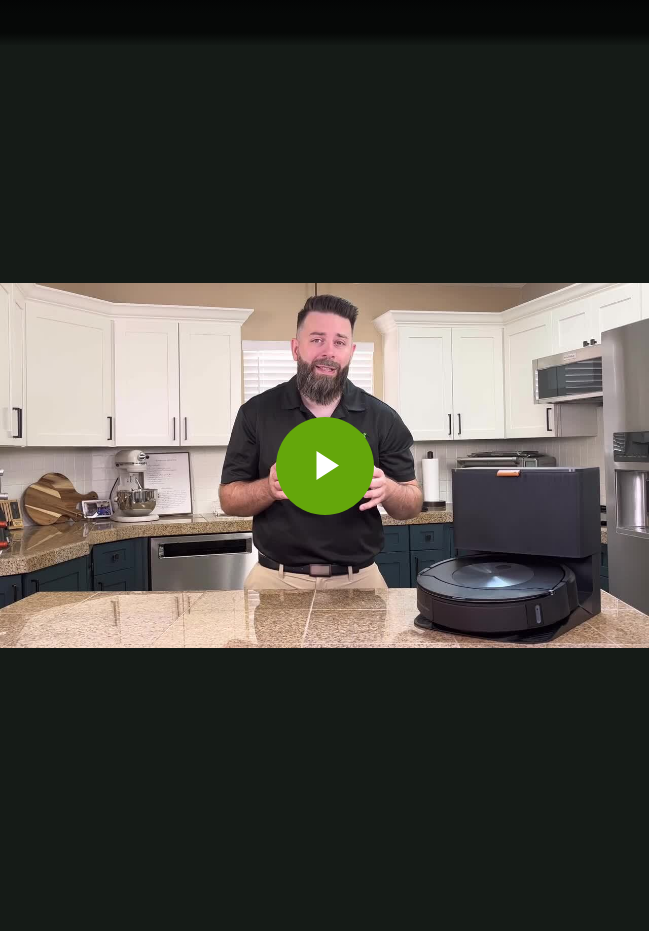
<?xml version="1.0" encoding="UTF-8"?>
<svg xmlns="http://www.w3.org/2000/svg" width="649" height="931">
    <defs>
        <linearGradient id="g1" gradientUnits="userSpaceOnUse" x1="325" y1="0" x2="325" y2="47"><stop offset="0" stop-color="#040505"/><stop offset="0.3" stop-color="#060807"/><stop offset="0.7" stop-color="#060807"/><stop offset="1" stop-color="#151B17"/></linearGradient>
    </defs>
    <rect width="100%" height="100%" fill="#151B17"/>
    <rect x="0" y="0" width="649" height="45" fill="url(#g1)"/>
    <image x="0" y="283" width="649" height="365" href="img_01.png"/>
    <circle cx="325" cy="466" r="49" fill="#64A70B"/>
    <path d="M 316.5 451 V 480 L 339 465.5 Z" fill="#FFFFFF"/>
</svg>
